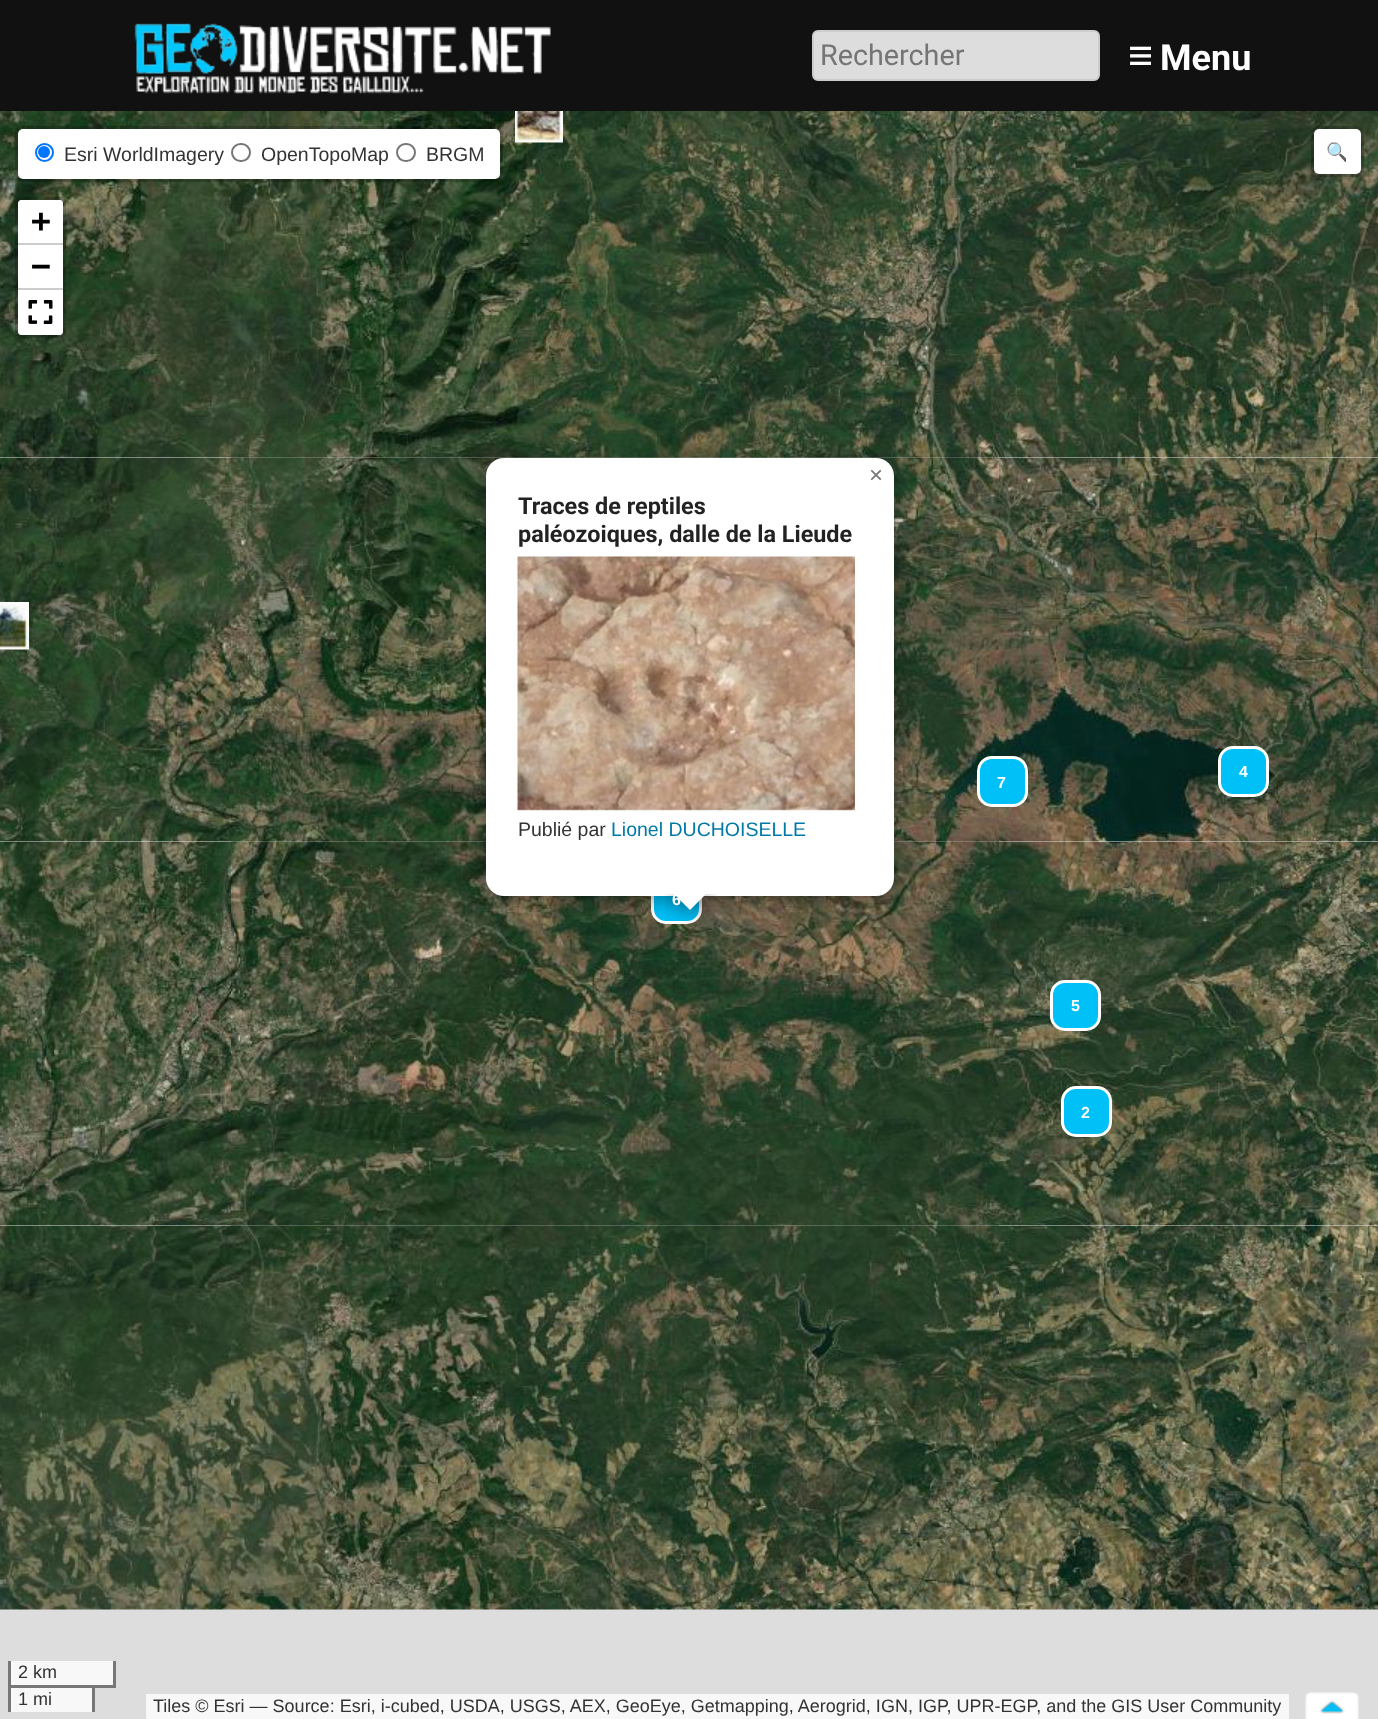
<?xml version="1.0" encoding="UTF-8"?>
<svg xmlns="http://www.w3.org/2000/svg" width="1378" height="1719">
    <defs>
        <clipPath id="clip1"><rect x="1323" y="140" width="23" height="24"/></clipPath>
        <filter id="blur1" x="-50%" y="-200%" width="200%" height="500%"><feGaussianBlur stdDeviation="10.5"/></filter>
        <clipPath id="clip2"><rect x="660" y="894" width="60" height="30"/></clipPath>
        <clipPath id="clip3"><rect x="660" y="894" width="60" height="30"/></clipPath>
    </defs>
    <rect width="100%" height="100%" fill="#111111"/>
    <image x="134" y="23" width="417" height="71" href="img_01.png"/>
    <rect x="813" y="31" width="286" height="49" rx="5" fill="#DDDDDD" stroke="#CCCCCC" stroke-width="2"/>
    <text x="820" y="65" font-family="Roboto" font-size="28.75" fill="#757575">Rechercher</text>
    <text x="1128" y="70" font-family="Liberation Sans" font-size="43" font-weight="700" fill="#FFFFFF">≡</text>
    <text x="1160" y="70" font-family="Roboto" font-size="36" font-weight="700" fill="#FFFFFF">Menu</text>
    <rect x="0" y="457" width="1378" height="1262" fill="#DDDDDD"/>
    <rect x="11" y="1688" width="81" height="24" fill="#F8F8F8"/>
    <image x="0" y="111" width="231" height="347" href="img_03.png"/>
    <image x="231" y="841" width="384" height="385" href="img_12.png"/>
    <image x="231" y="457" width="384" height="385" href="img_08.png"/>
    <image x="231" y="111" width="384" height="347" href="img_04.png"/>
    <rect x="18" y="129" width="482" height="50" rx="5" fill="#FFFFFF"/>
    <rect x="16.5" y="127.5" width="485" height="53" rx="6.5" fill="none" stroke="#000000" stroke-opacity="0.2" stroke-width="3"/>
    <circle cx="44.5" cy="152.5" r="8.5" fill="none" stroke="#0075FF" stroke-width="2"/>
    <circle cx="44" cy="152" r="6" fill="#0075FF"/>
    <text x="64" y="161" font-family="Liberation Sans" font-size="19.5" fill="#333333">Esri WorldImagery</text>
    <rect x="232" y="144" width="18" height="17" rx="8.5" fill="none" stroke="#767676" stroke-width="2"/>
    <text x="261" y="161" font-family="Liberation Sans" font-size="19.5" fill="#333333">OpenTopoMap</text>
    <rect x="397" y="144" width="18" height="17" rx="8.5" fill="none" stroke="#767676" stroke-width="2"/>
    <text x="426" y="161" font-family="Liberation Sans" font-size="19.5" fill="#333333">BRGM</text>
    <rect x="16.5" y="198.5" width="48" height="138" rx="4.5" fill="none" stroke="#000000" stroke-opacity="0.2" stroke-width="3"/>
    <path d="M 21 200 H 60 C 61.5 200 63 201.5 63 203 V 245 H 18 V 203 C 18 201.5 19.5 200 21 200 Z" fill="#FFFFFF"/>
    <rect x="18" y="243" width="45" height="2" fill="#CCCCCC"/>
    <text x="31" y="232" font-family="DejaVu Sans Mono" font-size="33" font-weight="700" fill="#000000">+</text>
    <rect x="18" y="245" width="45" height="43" fill="#FFFFFF"/>
    <rect x="18" y="288" width="45" height="2" fill="#CCCCCC"/>
    <text x="31" y="277" font-family="DejaVu Sans Mono" font-size="33" font-weight="700" fill="#000000">−</text>
    <path d="M 18 290 H 63 V 332 C 63 333.5 61.5 335 60 335 H 21 C 19.5 335 18 333.5 18 332 Z" fill="#FFFFFF"/>
    <image x="28" y="300" width="25" height="24" href="img_02.png"/>
    <image x="999" y="111" width="379" height="347" href="img_06.png"/>
    <rect x="1314" y="129" width="47" height="45" rx="5" fill="#FFFFFF"/>
    <rect x="1312.5" y="127.5" width="50" height="48" rx="6.5" fill="none" stroke="#000000" stroke-opacity="0.2" stroke-width="3"/>
    <g clip-path="url(#clip1)">
        <text x="1326" y="158" font-family="Noto Color Emoji" font-size="18" fill="#757575">🔍</text>
    </g>
    <rect x="11" y="1661" width="102" height="24" fill="#F8F8F8"/>
    <rect x="113" y="1661" width="3" height="27" fill="#777777"/>
    <rect x="95" y="1685" width="21" height="3" fill="#777777"/>
    <rect x="8" y="1661" width="3" height="27" fill="#777777"/>
    <text x="18" y="1678" font-family="Liberation Sans" font-size="18" fill="#333333">2 km</text>
    <rect x="8" y="1685" width="87" height="3" fill="#777777"/>
    <rect x="92" y="1685" width="3" height="27" fill="#777777"/>
    <rect x="8" y="1685" width="3" height="27" fill="#777777"/>
    <text x="18" y="1705" font-family="Liberation Sans" font-size="18" fill="#333333">1 mi</text>
    <rect x="146" y="1694" width="1143" height="25" fill="#F8F8F8"/>
    <text x="153" y="1712" font-family="Liberation Sans" font-size="18" fill="#333333">Tiles © Esri — Source: Esri, i-cubed, USDA, USGS, AEX, GeoEye, Getmapping, Aerogrid, IGN, IGP, UPR-EGP, and the GIS User Community</text>
    <image x="615" y="841" width="384" height="385" href="img_13.png"/>
    <image x="615" y="457" width="384" height="385" href="img_09.png"/>
    <image x="615" y="111" width="384" height="347" href="img_05.png"/>
    <image x="0" y="458" width="231" height="384" href="img_07.png"/>
    <image x="999" y="458" width="379" height="384" href="img_10.png"/>
    <image x="0" y="842" width="231" height="384" href="img_11.png"/>
    <image x="999" y="842" width="379" height="384" href="img_14.png"/>
    <image x="0" y="1226" width="231" height="384" href="img_15.png"/>
    <image x="231" y="1225" width="384" height="385" href="img_16.png"/>
    <image x="615" y="1225" width="384" height="385" href="img_17.png"/>
    <image x="999" y="1226" width="379" height="384" href="img_18.png"/>
    <rect x="652.5" y="874.5" width="48" height="48" rx="13.5" fill="#00C0F8" stroke="#FFFFFF" stroke-width="3"/>
    <rect x="486" y="462" width="408" height="438" rx="18" fill="#000000" fill-opacity="0.4" filter="url(#blur1)"/>
    <rect x="486" y="458" width="408" height="438" rx="18" fill="#FFFFFF"/>
    <text x="869" y="483" font-family="Liberation Sans" font-size="24" fill="#757575">×</text>
    <text font-family="Roboto" font-size="23.4" font-weight="700" fill="#222222">
        <tspan x="518" y="514">Traces de reptiles</tspan>
        <tspan x="518" y="542">paléozoiques, dalle de la Lieude</tspan>
    </text>
    <image x="517" y="556" width="338" height="255" href="img_19.png"/>
    <text x="518" y="836" font-family="Liberation Sans" font-size="19.5" fill="#333333">Publié par</text>
    <text x="611" y="836" font-family="Liberation Sans" font-size="19.5" fill="#0078A8">Lionel DUCHOISELLE</text>
    <g clip-path="url(#clip2)">
        <rect x="678" y="884" width="26" height="25" fill="#000000" fill-opacity="0.4" filter="url(#blur1)"/>
    </g>
    <g clip-path="url(#clip3)">
        <path d="M 690 874 L 708 892 L 690 910 L 672 892 Z" fill="#FFFFFF"/>
    </g>
    <image x="515" y="111" width="48" height="32" href="img_20.png"/>
    <image x="0" y="602" width="29" height="48" href="img_21.png"/>
    <rect x="1219.5" y="747.5" width="48" height="48" rx="13.5" fill="#00C0F8" stroke="#FFFFFF" stroke-width="3"/>
    <text x="1239" y="777" font-family="Liberation Sans" font-size="16" font-weight="700" fill="#FFFFFF">4</text>
    <rect x="978.5" y="757.5" width="48" height="48" rx="13.5" fill="#00C0F8" stroke="#FFFFFF" stroke-width="3"/>
    <text x="997" y="788" font-family="Liberation Sans" font-size="16" font-weight="700" fill="#FFFFFF">7</text>
    <text x="672" y="905" font-family="Liberation Sans" font-size="16" font-weight="700" fill="#FFFFFF">6</text>
    <rect x="1051.5" y="981.5" width="48" height="48" rx="13.5" fill="#00C0F8" stroke="#FFFFFF" stroke-width="3"/>
    <text x="1071" y="1011" font-family="Liberation Sans" font-size="16" font-weight="700" fill="#FFFFFF">5</text>
    <rect x="1062.5" y="1087.5" width="48" height="48" rx="13.5" fill="#00C0F8" stroke="#FFFFFF" stroke-width="3"/>
    <text x="1081" y="1118" font-family="Liberation Sans" font-size="16" font-weight="700" fill="#FFFFFF">2</text>
    <image x="1305" y="1692" width="54" height="27" href="img_22.png"/>
</svg>
